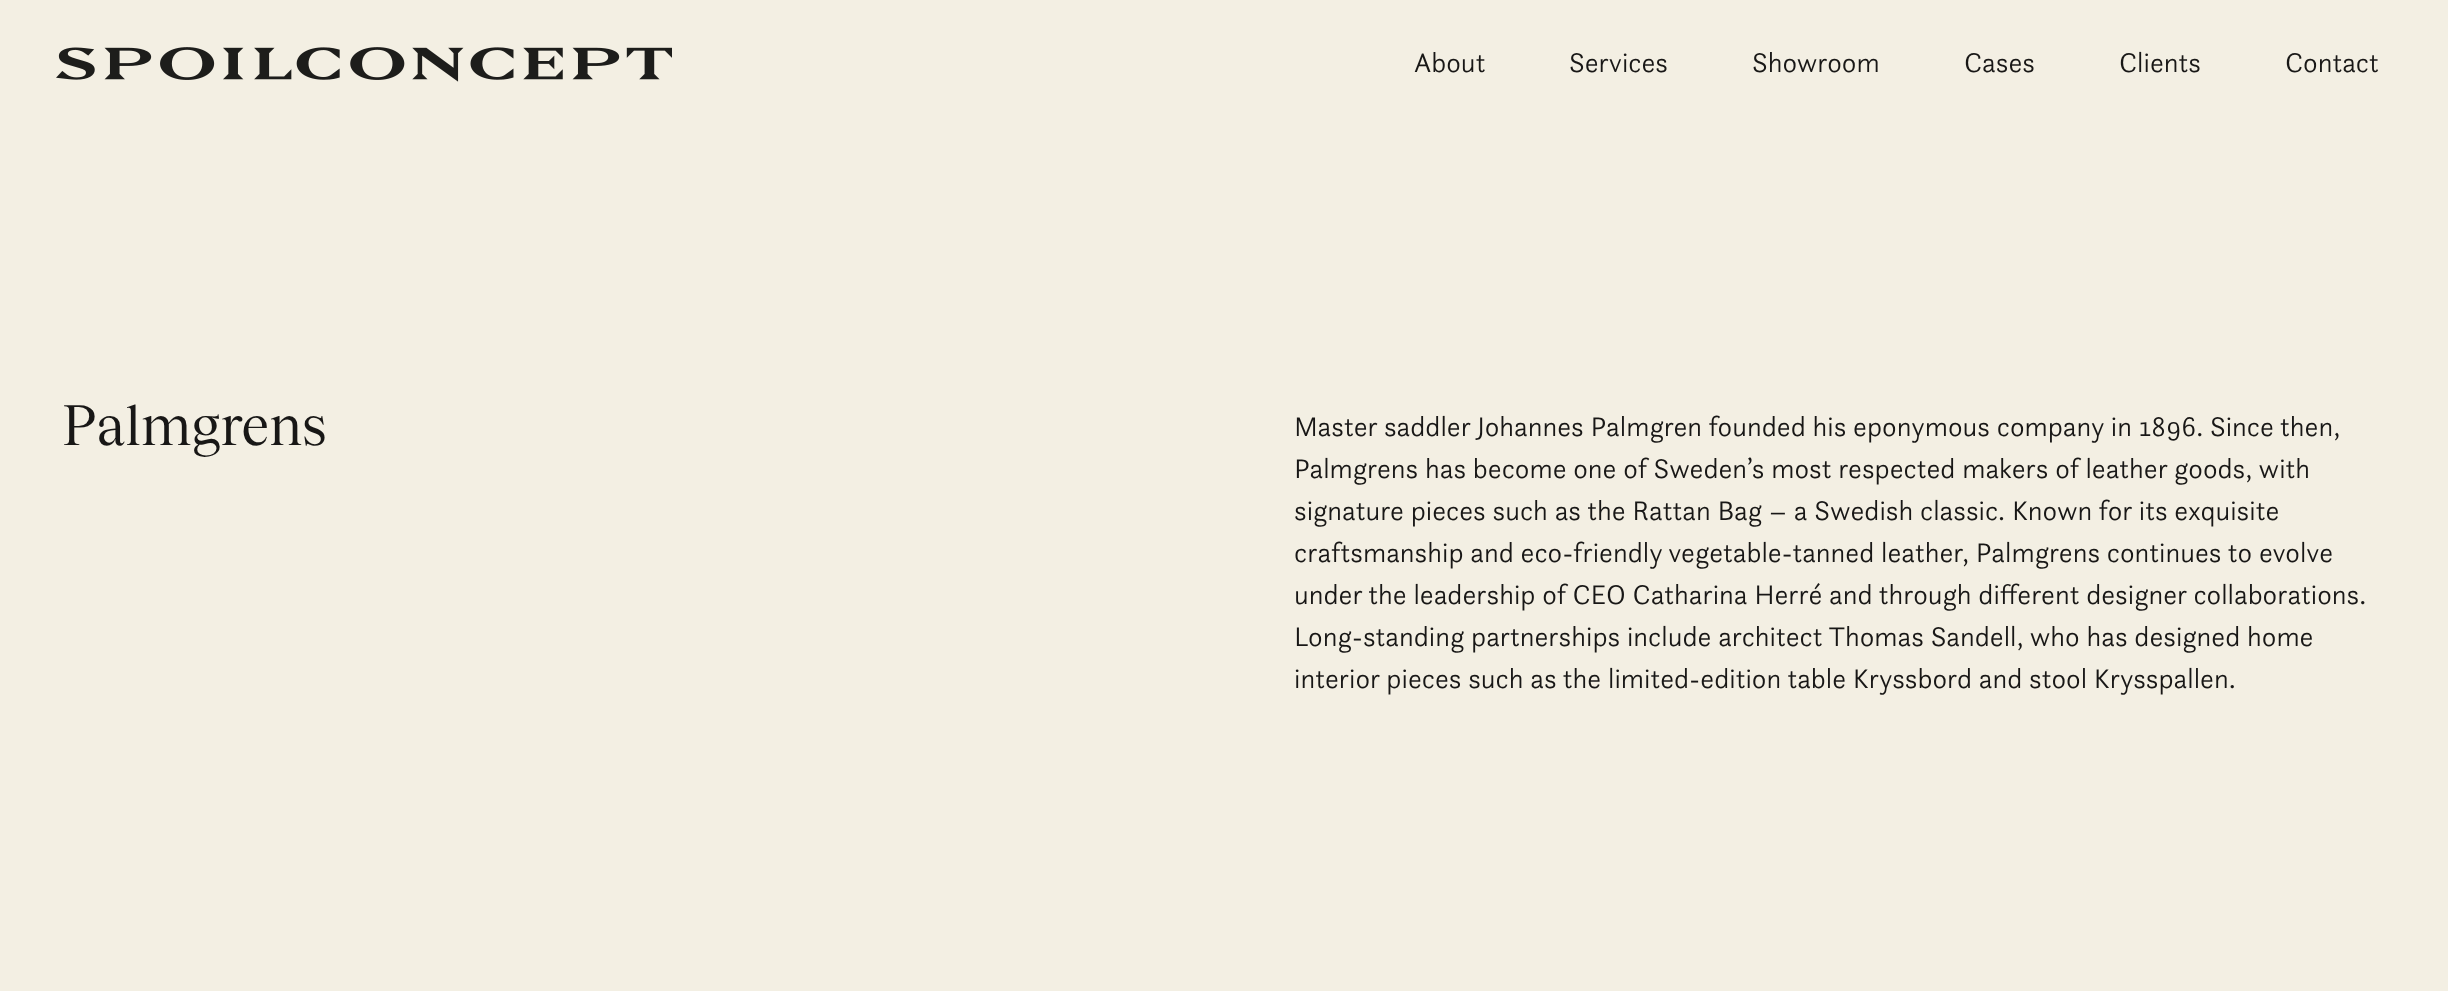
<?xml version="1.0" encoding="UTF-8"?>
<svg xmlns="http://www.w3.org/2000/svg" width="2448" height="991">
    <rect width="100%" height="100%" fill="#F3EFE3"/>
    <image x="56" y="47" width="616" height="35" href="img_01.png"/>
    <text x="1414" y="72" font-family="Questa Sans" font-size="28" font-weight="300" fill="#181716">About</text>
    <text x="1569" y="72" font-family="Questa Sans" font-size="28" font-weight="300" fill="#181716">Services</text>
    <text x="1752" y="72" font-family="Questa Sans" font-size="28" font-weight="300" fill="#181716">Showroom</text>
    <text x="1964" y="72" font-family="Questa Sans" font-size="28" font-weight="300" fill="#181716">Cases</text>
    <text x="2119" y="72" font-family="Questa Sans" font-size="28" font-weight="300" fill="#181716">Clients</text>
    <text x="2285" y="72" font-family="Questa Sans" font-size="28" font-weight="300" fill="#181716">Contact</text>
    <text x="62" y="445" font-family="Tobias" font-size="56" fill="#181716">Palmgrens</text>
    <text font-family="Questa Sans" font-size="28" font-weight="300" fill="#181716">
        <tspan x="1294" y="436">Master saddler Johannes Palmgren founded his eponymous company in 1896. Since then,</tspan>
        <tspan x="1294" y="478">Palmgrens has become one of Sweden’s most respected makers of leather goods, with</tspan>
        <tspan x="1294" y="520">signature pieces such as the Rattan Bag – a Swedish classic. Known for its exquisite</tspan>
        <tspan x="1294" y="562">craftsmanship and eco-friendly vegetable-tanned leather, Palmgrens continues to evolve</tspan>
        <tspan x="1294" y="604">under the leadership of CEO Catharina Herré and through different designer collaborations.</tspan>
        <tspan x="1294" y="646">Long-standing partnerships include architect Thomas Sandell, who has designed home</tspan>
        <tspan x="1294" y="688">interior pieces such as the limited-edition table Kryssbord and stool Krysspallen.</tspan>
    </text>
</svg>
